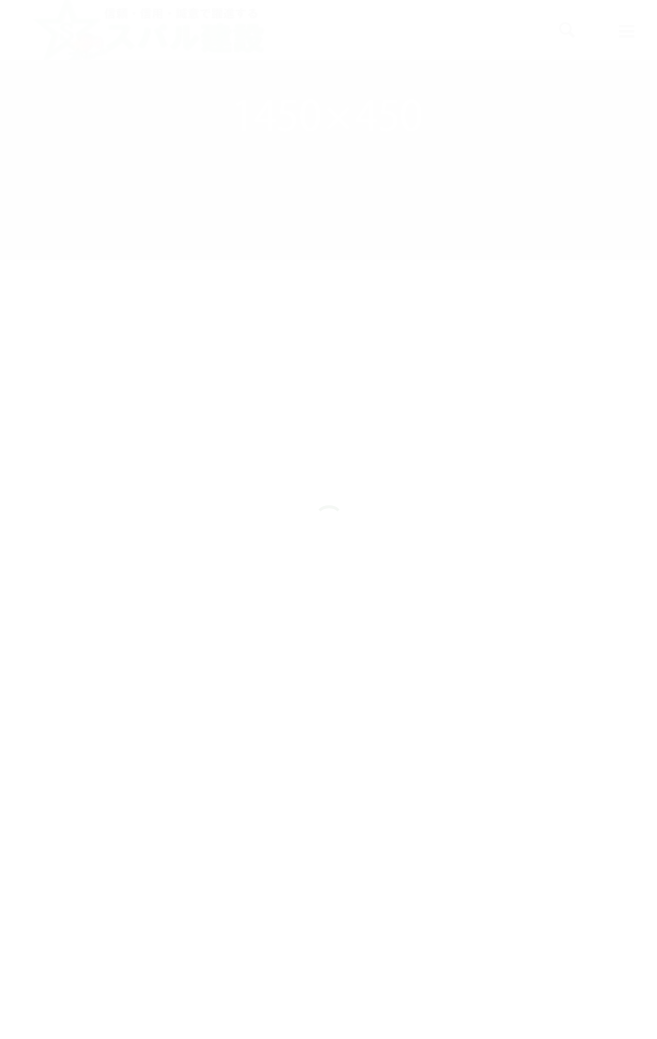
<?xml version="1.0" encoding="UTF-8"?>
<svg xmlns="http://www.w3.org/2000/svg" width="657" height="1039">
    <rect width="100%" height="100%" fill="#FFFFFF"/>
    <image x="28" y="0" width="248" height="60" href="img_01.png"/>
    <image x="559" y="22" width="16" height="16" href="img_02.png"/>
    <image x="619" y="24" width="16" height="14" href="img_03.png"/>
    <image x="0" y="60" width="657" height="200" href="img_04.png"/>
    <path d="M 319.5 510.5 C 324.5 505.5 333.5 505.5 338.5 510.5" fill="none" stroke="#F5F8F5" stroke-width="3"/>
</svg>
